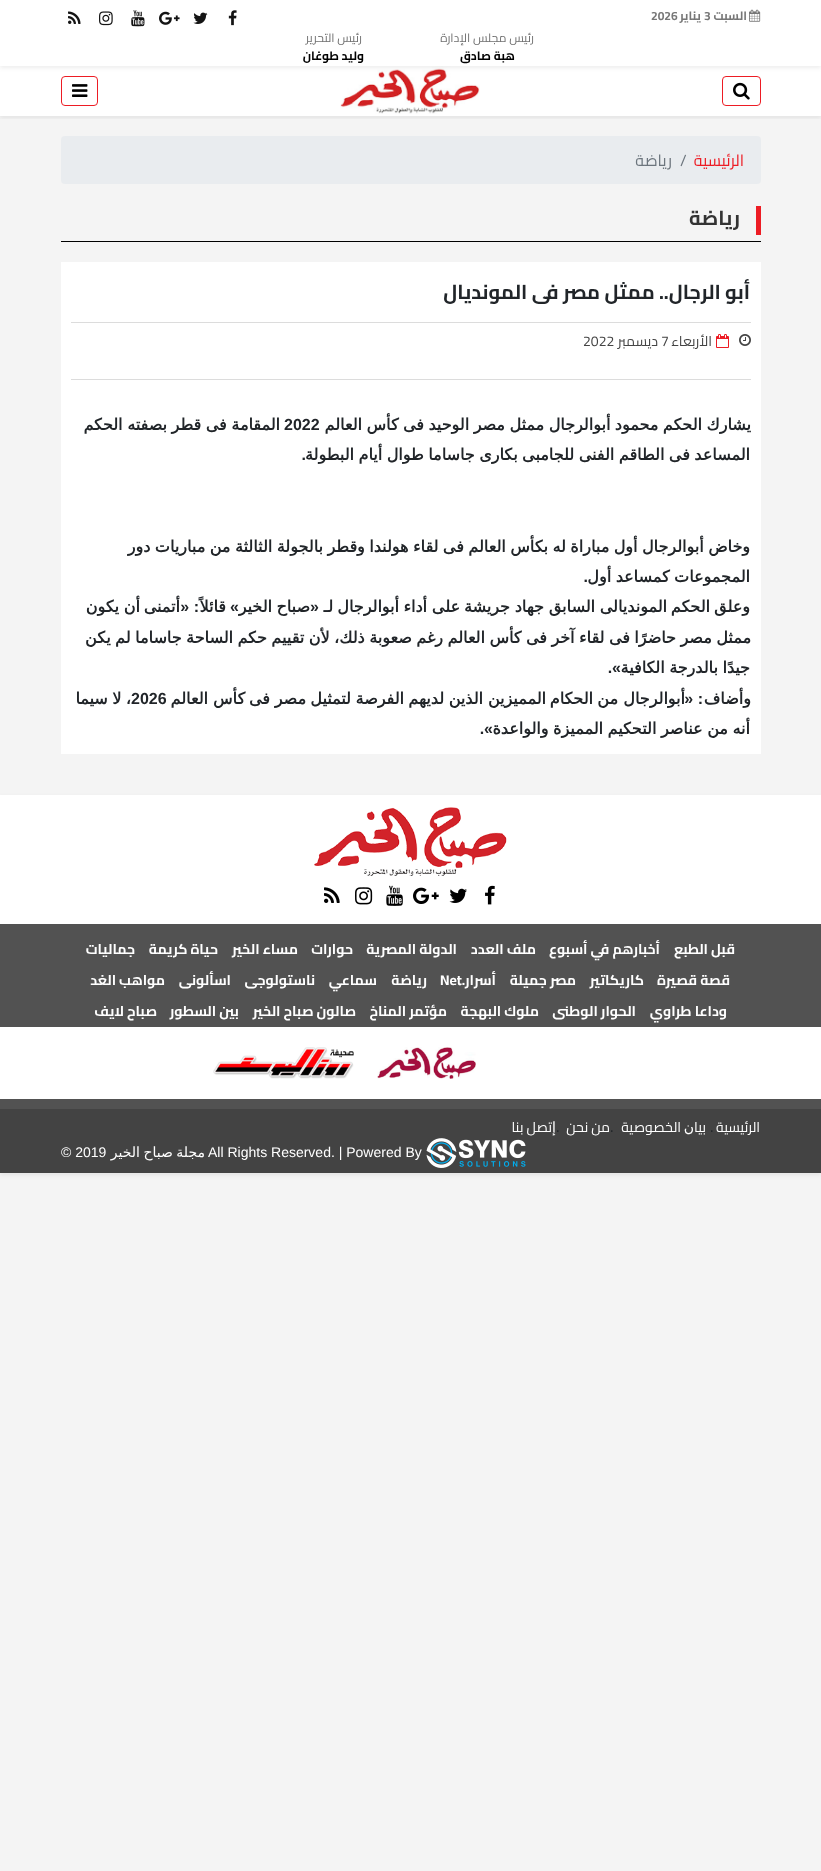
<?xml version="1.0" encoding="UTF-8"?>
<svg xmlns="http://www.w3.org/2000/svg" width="821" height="1871">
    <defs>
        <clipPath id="clip1"><rect x="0" y="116" width="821" height="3"/></clipPath>
        <filter id="blur1" x="-50%" y="-200%" width="200%" height="500%"><feGaussianBlur stdDeviation="2"/></filter>
    </defs>
    <rect width="100%" height="100%" fill="#F4F4F4"/>
    <rect x="0" y="66" width="821" height="50" fill="#FFFFFF"/>
    <g clip-path="url(#clip1)">
        <rect x="0" y="68" width="821" height="50" fill="#000000" fill-opacity="0.07" filter="url(#blur1)"/>
    </g>
    <image x="340" y="66" width="140" height="48" href="img_09.png"/>
    <rect x="0" y="2" width="821" height="66" fill="#000000" fill-opacity="0.07" filter="url(#blur1)"/>
    <rect x="0" y="0" width="821" height="66" fill="#FFFFFF"/>
    <image x="749" y="9" width="12" height="13" href="img_01.png"/>
    <text x="747" y="20" font-family="Cairo" font-size="12" font-weight="700" direction="rtl" fill="#777777">السبت</text>
    <text x="704" y="20" font-family="Cairo" font-size="12" font-weight="700" fill="#777777">3</text>
    <text x="701" y="20" font-family="Cairo" font-size="12" font-weight="700" direction="rtl" fill="#777777">يناير</text>
    <text x="651" y="20" font-family="Cairo" font-size="12" font-weight="700" fill="#777777">2026</text>
    <image x="228" y="10" width="9" height="16" href="img_02.png"/>
    <image x="193" y="12" width="15" height="12" href="img_03.png"/>
    <image x="159" y="11" width="21" height="14" href="img_04.png"/>
    <image x="131" y="10" width="14" height="17" href="img_05.png"/>
    <image x="99" y="11" width="14" height="15" href="img_06.png"/>
    <image x="68" y="11" width="13" height="13" href="img_07.png"/>
    <text x="534" y="42" font-family="Cairo" font-size="12" direction="rtl" fill="#707070">رئيس مجلس الإدارة</text>
    <text x="515" y="60" font-family="Cairo" font-size="12" font-weight="700" direction="rtl" fill="#000000">هبة</text>
    <text x="491" y="60" font-family="Cairo" font-size="12" font-weight="700" direction="rtl" fill="#000000">صادق</text>
    <text x="362" y="42" font-family="Cairo" font-size="12" direction="rtl" fill="#707070">رئيس التحرير</text>
    <text x="364" y="60" font-family="Cairo" font-size="12" font-weight="700" direction="rtl" fill="#000000">وليد طوغان</text>
    <rect x="722.5" y="76.5" width="38" height="29" rx="3.5" fill="none" stroke="#ED1C24"/>
    <image x="733" y="82" width="17" height="18" href="img_08.png"/>
    <rect x="61.5" y="76.5" width="36" height="29" rx="3.5" fill="none" stroke="#ED1C24"/>
    <image x="72" y="84" width="16" height="13" href="img_10.png"/>
    <rect x="61" y="136" width="700" height="48" rx="4" fill="#E9ECEF"/>
    <text x="744" y="166" font-family="Cairo" font-size="16" direction="rtl" fill="#ED1C24">الرئيسية</text>
    <text x="680" y="166" font-family="Cairo" font-size="16" fill="#6C757D">/</text>
    <text x="672" y="166" font-family="Cairo" font-size="16" direction="rtl" fill="#6C757D">رياضة</text>
    <rect x="61" y="241" width="700" height="1" fill="#000000"/>
    <rect x="756" y="206" width="5" height="29" fill="#ED1C24"/>
    <text x="740" y="225" font-family="Cairo" font-size="20" font-weight="700" direction="rtl" fill="#333333">رياضة</text>
    <rect x="61" y="262" width="700" height="492" fill="#FFFFFF"/>
    <text x="750" y="299" font-family="Cairo" font-size="20" font-weight="700" direction="rtl" fill="#212529">أبو الرجال.. ممثل مصر فى المونديال</text>
    <rect x="71" y="322" width="680" height="1" fill="#DCDCDC"/>
    <image x="739" y="334" width="12" height="12" href="img_11.png"/>
    <image x="716" y="334" width="13" height="14" href="img_12.png"/>
    <text x="712" y="346" font-family="Cairo" font-size="14" direction="rtl" fill="#444444">الأربعاء</text>
    <text x="661" y="346" font-family="Cairo" font-size="14" fill="#444444">7</text>
    <text x="658" y="346" font-family="Cairo" font-size="14" direction="rtl" fill="#444444">ديسمبر</text>
    <text x="583" y="346" font-family="Cairo" font-size="14" fill="#444444">2022</text>
    <rect x="71" y="379" width="680" height="1" fill="#DCDCDC"/>
    <text x="751" y="430" word-spacing="-0.6" font-family="DejaVu Sans" font-size="16" font-weight="700" direction="rtl" fill="#212529">يشارك الحكم محمود أبوالرجال ممثل مصر الوحيد فى كأس العالم</text>
    <text x="284" y="430" font-family="Liberation Sans" font-size="16" font-weight="700" fill="#212529">2022</text>
    <text x="280" y="430" word-spacing="-0.5" font-family="DejaVu Sans" font-size="16" font-weight="700" direction="rtl" fill="#212529">المقامة فى قطر بصفته الحكم</text>
    <text x="750" y="460" word-spacing="-0.6" font-family="DejaVu Sans" font-size="16" font-weight="700" direction="rtl" fill="#212529">المساعد فى الطاقم الفنى للجامبى بكارى جاساما طوال أيام البطولة</text>
    <text x="306" y="460" font-family="Liberation Sans" font-size="16" font-weight="700" direction="rtl" fill="#212529">.</text>
    <text font-family="DejaVu Sans" font-size="16" font-weight="700" direction="rtl" fill="#212529">
        <tspan x="750" y="552" word-spacing="-0.6">وخاض أبوالرجال أول مباراة له بكأس العالم فى لقاء هولندا وقطر بالجولة الثالثة من مباريات دور</tspan>
        <tspan x="750" y="582" word-spacing="-0.6">المجموعات كمساعد أول</tspan>
    </text>
    <text x="588" y="582" font-family="Liberation Sans" font-size="16" font-weight="700" direction="rtl" fill="#212529">.</text>
    <text x="750" y="612" font-family="DejaVu Sans" font-size="16" font-weight="700" direction="rtl" fill="#212529">وعلق</text>
    <text x="710" y="612" font-family="DejaVu Sans" font-size="16" font-weight="700" direction="rtl" fill="#212529">الحكم</text>
    <text x="667" y="612" font-family="DejaVu Sans" font-size="16" font-weight="700" direction="rtl" fill="#212529">المونديالى</text>
    <text x="595" y="612" font-family="DejaVu Sans" font-size="16" font-weight="700" direction="rtl" fill="#212529">السابق</text>
    <text x="544" y="612" font-family="DejaVu Sans" font-size="16" font-weight="700" direction="rtl" fill="#212529">جهاد</text>
    <text x="510" y="612" font-family="DejaVu Sans" font-size="16" font-weight="700" direction="rtl" fill="#212529">جريشة</text>
    <text x="460" y="612" font-family="DejaVu Sans" font-size="16" font-weight="700" direction="rtl" fill="#212529">على</text>
    <text x="427" y="612" font-family="DejaVu Sans" font-size="16" font-weight="700" direction="rtl" fill="#212529">أداء</text>
    <text x="399" y="612" font-family="DejaVu Sans" font-size="16" font-weight="700" direction="rtl" fill="#212529">أبوالرجال</text>
    <text x="333" y="612" font-family="DejaVu Sans" font-size="16" font-weight="700" direction="rtl" fill="#212529">لـ</text>
    <text x="319" y="612" font-family="Liberation Sans" font-size="16" font-weight="700" direction="rtl" fill="#212529">«</text>
    <text x="310" y="612" font-family="DejaVu Sans" font-size="16" font-weight="700" direction="rtl" fill="#212529">صباح</text>
    <text x="239" y="612" font-family="Liberation Sans" font-size="16" font-weight="700" direction="rtl" fill="#212529">»</text>
    <text x="272" y="612" font-family="DejaVu Sans" font-size="16" font-weight="700" direction="rtl" fill="#212529">الخير</text>
    <text x="199" y="612" font-family="Liberation Sans" font-size="16" font-weight="700" direction="rtl" fill="#212529">: «</text>
    <text x="226" y="612" font-family="DejaVu Sans" font-size="16" font-weight="700" direction="rtl" fill="#212529">قائلاً</text>
    <text x="180" y="612" font-family="DejaVu Sans" font-size="16" font-weight="700" direction="rtl" fill="#212529">أتمنى</text>
    <text x="140" y="612" font-family="DejaVu Sans" font-size="16" font-weight="700" direction="rtl" fill="#212529">أن</text>
    <text x="119" y="612" font-family="DejaVu Sans" font-size="16" font-weight="700" direction="rtl" fill="#212529">يكون</text>
    <text x="751" y="643" word-spacing="-0.6" font-family="DejaVu Sans" font-size="16" font-weight="700" direction="rtl" fill="#212529">ممثل مصر حاضرًا فى لقاء آخر فى كأس العالم رغم صعوبة ذلك، لأن تقييم حكم الساحة جاساما لم يكن</text>
    <text x="750" y="673" word-spacing="-0.6" font-family="DejaVu Sans" font-size="16" font-weight="700" direction="rtl" fill="#212529">جيدًا بالدرجة الكافية</text>
    <text x="621" y="673" font-family="Liberation Sans" font-size="16" font-weight="700" direction="rtl" fill="#212529">».</text>
    <text x="751" y="704" font-family="DejaVu Sans" font-size="16" font-weight="700" direction="rtl" fill="#212529">وأضاف</text>
    <text x="703" y="704" font-family="Liberation Sans" font-size="16" font-weight="700" direction="rtl" fill="#212529">: «</text>
    <text x="685" y="704" font-family="DejaVu Sans" font-size="16" font-weight="700" direction="rtl" fill="#212529">أبوالرجال</text>
    <text x="618" y="704" font-family="DejaVu Sans" font-size="16" font-weight="700" direction="rtl" fill="#212529">من</text>
    <text x="593" y="704" font-family="DejaVu Sans" font-size="16" font-weight="700" direction="rtl" fill="#212529">الحكام</text>
    <text x="546" y="704" font-family="DejaVu Sans" font-size="16" font-weight="700" direction="rtl" fill="#212529">المميزين</text>
    <text x="483" y="704" font-family="DejaVu Sans" font-size="16" font-weight="700" direction="rtl" fill="#212529">الذين</text>
    <text x="444" y="704" font-family="DejaVu Sans" font-size="16" font-weight="700" direction="rtl" fill="#212529">لديهم</text>
    <text x="404" y="704" font-family="DejaVu Sans" font-size="16" font-weight="700" direction="rtl" fill="#212529">الفرصة</text>
    <text x="351" y="704" font-family="DejaVu Sans" font-size="16" font-weight="700" direction="rtl" fill="#212529">لتمثيل</text>
    <text x="306" y="704" font-family="DejaVu Sans" font-size="16" font-weight="700" direction="rtl" fill="#212529">مصر</text>
    <text x="270" y="704" font-family="DejaVu Sans" font-size="16" font-weight="700" direction="rtl" fill="#212529">فى</text>
    <text x="245" y="704" font-family="DejaVu Sans" font-size="16" font-weight="700" direction="rtl" fill="#212529">كأس</text>
    <text x="208" y="704" font-family="DejaVu Sans" font-size="16" font-weight="700" direction="rtl" fill="#212529">العالم</text>
    <text x="131" y="704" font-family="Liberation Sans" font-size="16" font-weight="700" fill="#212529">2026</text>
    <text x="131" y="704" word-spacing="-0.6" font-family="DejaVu Sans" font-size="16" font-weight="700" direction="rtl" fill="#212529">، لا سيما</text>
    <text x="750" y="734" word-spacing="-0.5" font-family="DejaVu Sans" font-size="16" font-weight="700" direction="rtl" fill="#212529">أنه من عناصر التحكيم المميزة والواعدة</text>
    <text x="493" y="734" font-family="Liberation Sans" font-size="16" font-weight="700" direction="rtl" fill="#212529">».</text>
    <rect x="0" y="797" width="821" height="378" fill="#000000" fill-opacity="0.07" filter="url(#blur1)"/>
    <rect x="0" y="924" width="821" height="185" fill="#525252"/>
    <rect x="0" y="795" width="821" height="129" fill="#FFFFFF"/>
    <image x="314" y="807" width="193" height="69" href="img_13.png"/>
    <image x="485" y="885" width="10" height="20" href="img_14.png"/>
    <image x="449" y="888" width="18" height="15" href="img_15.png"/>
    <image x="413" y="887" width="26" height="17" href="img_16.png"/>
    <image x="386" y="885" width="17" height="21" href="img_17.png"/>
    <image x="355" y="887" width="18" height="18" href="img_18.png"/>
    <image x="324" y="887" width="16" height="16" href="img_19.png"/>
    <text x="735" y="954" font-family="Cairo" font-size="14" font-weight="700" direction="rtl" fill="#FFFFFF">قبل الطبع</text>
    <text x="660" y="954" font-family="Cairo" font-size="14" font-weight="700" direction="rtl" fill="#FFFFFF">أخبارهم في أسبوع</text>
    <text x="536" y="954" font-family="Cairo" font-size="14" font-weight="700" direction="rtl" fill="#FFFFFF">ملف العدد</text>
    <text x="457" y="954" font-family="Cairo" font-size="14" font-weight="700" direction="rtl" fill="#FFFFFF">الدولة المصرية</text>
    <text x="353" y="954" font-family="Cairo" font-size="14" font-weight="700" direction="rtl" fill="#FFFFFF">حوارات</text>
    <text x="298" y="954" font-family="Cairo" font-size="14" font-weight="700" direction="rtl" fill="#FFFFFF">مساء الخير</text>
    <text x="218" y="954" font-family="Cairo" font-size="14" font-weight="700" direction="rtl" fill="#FFFFFF">حياة كريمة</text>
    <text x="135" y="954" font-family="Cairo" font-size="14" font-weight="700" direction="rtl" fill="#FFFFFF">جماليات</text>
    <text x="730" y="985" font-family="Cairo" font-size="14" font-weight="700" direction="rtl" fill="#FFFFFF">قصة قصيرة</text>
    <text x="644" y="985" font-family="Cairo" font-size="14" font-weight="700" direction="rtl" fill="#FFFFFF">كاريكاتير</text>
    <text x="576" y="985" font-family="Cairo" font-size="14" font-weight="700" direction="rtl" fill="#FFFFFF">مصر جميلة</text>
    <text x="496" y="985" font-family="Cairo" font-size="14" font-weight="700" direction="rtl" fill="#FFFFFF">أسرار.</text>
    <text x="440" y="985" font-family="Cairo" font-size="14" font-weight="700" fill="#FFFFFF">Net</text>
    <text x="427" y="985" font-family="Cairo" font-size="14" font-weight="700" direction="rtl" fill="#FFFFFF">رياضة</text>
    <text x="377" y="985" font-family="Cairo" font-size="14" font-weight="700" direction="rtl" fill="#FFFFFF">سماعي</text>
    <text x="315" y="985" font-family="Cairo" font-size="14" font-weight="700" direction="rtl" fill="#FFFFFF">ناستولوجى</text>
    <text x="231" y="985" font-family="Cairo" font-size="14" font-weight="700" direction="rtl" fill="#FFFFFF">اسألونى</text>
    <text x="165" y="985" font-family="Cairo" font-size="14" font-weight="700" direction="rtl" fill="#FFFFFF">مواهب الغد</text>
    <text x="727" y="1016" font-family="Cairo" font-size="14" font-weight="700" direction="rtl" fill="#FFFFFF">وداعا طراوي</text>
    <text x="636" y="1016" font-family="Cairo" font-size="14" font-weight="700" direction="rtl" fill="#FFFFFF">الحوار الوطنى</text>
    <text x="539" y="1016" font-family="Cairo" font-size="14" font-weight="700" direction="rtl" fill="#FFFFFF">ملوك البهجة</text>
    <text x="447" y="1016" font-family="Cairo" font-size="14" font-weight="700" direction="rtl" fill="#FFFFFF">مؤتمر المناخ</text>
    <text x="356" y="1016" font-family="Cairo" font-size="14" font-weight="700" direction="rtl" fill="#FFFFFF">صالون صباح الخير</text>
    <text x="239" y="1016" font-family="Cairo" font-size="14" font-weight="700" direction="rtl" fill="#FFFFFF">بين السطور</text>
    <text x="157" y="1016" font-family="Cairo" font-size="14" font-weight="700" direction="rtl" fill="#FFFFFF">صباح لايف</text>
    <rect x="0" y="1027" width="821" height="72" fill="#FFFFFF"/>
    <image x="377" y="1047" width="99" height="32" href="img_20.png"/>
    <image x="213" y="1047" width="141" height="32" href="img_21.png"/>
    <rect x="0" y="1109" width="821" height="64" fill="#434343"/>
    <text x="760" y="1132" font-family="Cairo" font-size="14" direction="rtl" fill="#FFFFFF">الرئيسية</text>
    <text x="710" y="1132" font-family="Cairo" font-size="16" fill="#212529">.</text>
    <text x="706" y="1132" font-family="Cairo" font-size="14" direction="rtl" fill="#FFFFFF">ﺑﻴﺎ</text>
    <text x="694" y="1132" font-family="DejaVu Sans" font-size="14" direction="rtl" fill="#FFFFFF">ﻥ</text>
    <text x="681" y="1132" font-family="Cairo" font-size="14" direction="rtl" fill="#FFFFFF">اﻟﺨﺼﻮﺻﻴﺔ</text>
    <text x="610" y="1132" font-family="Cairo" font-size="16" fill="#212529">.</text>
    <text x="610" y="1132" font-family="Cairo" font-size="14" direction="rtl" fill="#FFFFFF">ﻣﻦ ﻧﺤﻦ</text>
    <text x="556" y="1132" font-family="Cairo" font-size="16" fill="#212529">.</text>
    <text x="556" y="1132" font-family="DejaVu Sans" font-size="14" direction="rtl" fill="#FFFFFF">ﺇ</text>
    <text x="552" y="1132" font-family="Cairo" font-size="14" direction="rtl" fill="#FFFFFF">ﺗﺼﻞ ﺑﻨﺎ</text>
    <image x="426" y="1138" width="100" height="30" href="img_22.png"/>
    <text x="208" y="1157" font-family="Liberation Sans" font-size="14" fill="#FFFFFF">All Rights Reserved. | Powered By</text>
    <text x="205" y="1157" word-spacing="-1" font-family="DejaVu Sans" font-size="14" direction="rtl" fill="#FFFFFF">مجلة صباح الخير</text>
    <text x="61" y="1157" font-family="Liberation Sans" font-size="14" fill="#FFFFFF">© 2019</text>
</svg>
